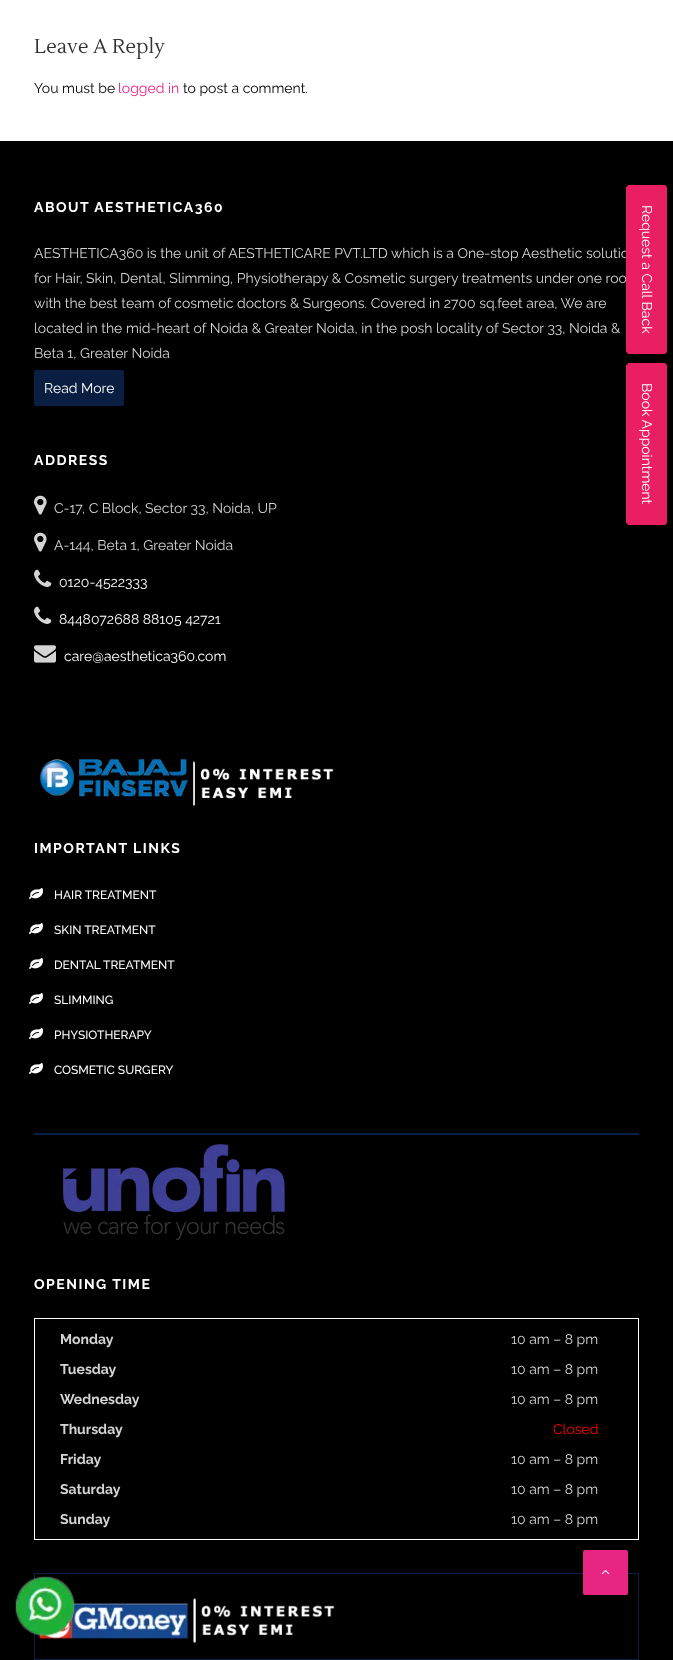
<?xml version="1.0" encoding="UTF-8"?>
<svg xmlns="http://www.w3.org/2000/svg" width="673" height="1660">
    <rect width="100%" height="100%" fill="#FFFFFF"/>
    <text x="34" y="53" font-family="Lustria" font-size="20" fill="#333333">Leave A Reply</text>
    <text x="34" y="93" font-family="Raleway" font-size="14" fill="#000000">You must be</text>
    <text x="118" y="93" font-family="Raleway" font-size="14" fill="#E82583">logged in</text>
    <text x="183" y="93" font-family="Raleway" font-size="14" fill="#000000">to post a comment.</text>
    <rect x="0" y="141" width="673" height="1519" fill="#000000"/>
    <text x="34" y="212" font-family="Raleway" font-size="14" font-weight="700" letter-spacing="1.5" fill="#FFFFFF">ABOUT AESTHETICA360</text>
    <text font-family="Raleway" font-size="14" fill="#D4D4D4">
        <tspan x="34" y="258">AESTHETICA360 is the unit of AESTHETICARE PVT.LTD which is a One-stop Aesthetic solutio</tspan>
        <tspan x="34" y="283">for Hair, Skin, Dental, Slimming, Physiotherapy &amp; Cosmetic surgery treatments under one roo</tspan>
        <tspan x="34" y="308">with the best team of cosmetic doctors &amp; Surgeons. Covered in 2700 sq.feet area, We are</tspan>
        <tspan x="34" y="333">located in the mid-heart of Noida &amp; Greater Noida, in the posh locality of Sector 33, Noida &amp;</tspan>
        <tspan x="34" y="358">Beta 1, Greater Noida</tspan>
    </text>
    <rect x="34" y="370" width="90" height="36" rx="2" fill="#091E41"/>
    <text x="44" y="393" font-family="Raleway" font-size="14" fill="#FFFFFF">Read More</text>
    <text x="34" y="465" font-family="Raleway" font-size="14" font-weight="700" letter-spacing="1.5" fill="#FFFFFF">ADDRESS</text>
    <image x="34" y="495" width="13" height="20" href="img_01.png"/>
    <text x="54" y="513" font-family="Raleway" font-size="14" fill="#D4D4D4">C-17, C Block, Sector 33, Noida, UP</text>
    <image x="34" y="532" width="13" height="20" href="img_01.png"/>
    <text x="54" y="550" font-family="Raleway" font-size="14" fill="#D4D4D4">A-144, Beta 1, Greater Noida</text>
    <image x="34" y="569" width="18" height="18" href="img_02.png"/>
    <text x="59" y="587" font-family="Raleway" font-size="14" fill="#FFFFFF">0120-4522333</text>
    <image x="34" y="606" width="18" height="18" href="img_02.png"/>
    <text x="59" y="624" font-family="Raleway" font-size="14" fill="#FFFFFF">8448072688 88105 42721</text>
    <image x="34" y="645" width="22" height="18" href="img_03.png"/>
    <text x="64" y="661" font-family="Raleway" font-size="14" fill="#FFFFFF">care@aesthetica360.com</text>
    <image x="40" y="759" width="294" height="47" href="img_04.png"/>
    <text x="34" y="853" font-family="Raleway" font-size="14" font-weight="700" letter-spacing="1.5" fill="#FFFFFF">IMPORTANT LINKS</text>
    <image x="29" y="888" width="14" height="11" href="img_05.png"/>
    <text x="54" y="899" font-family="Raleway" font-size="12" font-weight="500" fill="#FFFFFF">HAIR TREATMENT</text>
    <image x="29" y="923" width="14" height="11" href="img_05.png"/>
    <text x="54" y="934" font-family="Raleway" font-size="12" font-weight="500" fill="#FFFFFF">SKIN TREATMENT</text>
    <image x="29" y="958" width="14" height="11" href="img_05.png"/>
    <text x="54" y="969" font-family="Raleway" font-size="12" font-weight="500" fill="#FFFFFF">DENTAL TREATMENT</text>
    <image x="29" y="993" width="14" height="11" href="img_05.png"/>
    <text x="54" y="1004" font-family="Raleway" font-size="12" font-weight="500" fill="#FFFFFF">SLIMMING</text>
    <image x="29" y="1028" width="14" height="11" href="img_05.png"/>
    <text x="54" y="1039" font-family="Raleway" font-size="12" font-weight="500" fill="#FFFFFF">PHYSIOTHERAPY</text>
    <image x="29" y="1063" width="14" height="11" href="img_05.png"/>
    <text x="54" y="1074" font-family="Raleway" font-size="12" font-weight="500" fill="#FFFFFF">COSMETIC SURGERY</text>
    <rect x="34" y="1133" width="605" height="2" fill="#091E41"/>
    <image x="63" y="1144" width="222" height="96" href="img_06.png"/>
    <text x="34" y="1289" font-family="Raleway" font-size="14" font-weight="700" letter-spacing="1.5" fill="#FFFFFF">OPENING TIME</text>
    <rect x="34.5" y="1318.5" width="604" height="221" fill="none" stroke="#FFFFFF"/>
    <text x="60" y="1344" font-family="Raleway" font-size="14" font-weight="700" fill="#D4D4D4">Monday</text>
    <text x="511" y="1344" font-family="Raleway" font-size="14" fill="#D4D4D4">10 am – 8 pm</text>
    <text x="60" y="1374" font-family="Raleway" font-size="14" font-weight="700" fill="#D4D4D4">Tuesday</text>
    <text x="511" y="1374" font-family="Raleway" font-size="14" fill="#D4D4D4">10 am – 8 pm</text>
    <text x="60" y="1404" font-family="Raleway" font-size="14" font-weight="700" fill="#D4D4D4">Wednesday</text>
    <text x="511" y="1404" font-family="Raleway" font-size="14" fill="#D4D4D4">10 am – 8 pm</text>
    <text x="60" y="1434" font-family="Raleway" font-size="14" font-weight="700" fill="#D4D4D4">Thursday</text>
    <text x="553" y="1434" font-family="Raleway" font-size="14" fill="#FF0000">Closed</text>
    <text x="60" y="1464" font-family="Raleway" font-size="14" font-weight="700" fill="#D4D4D4">Friday</text>
    <text x="511" y="1464" font-family="Raleway" font-size="14" fill="#D4D4D4">10 am – 8 pm</text>
    <text x="60" y="1494" font-family="Raleway" font-size="14" font-weight="700" fill="#D4D4D4">Saturday</text>
    <text x="511" y="1494" font-family="Raleway" font-size="14" fill="#D4D4D4">10 am – 8 pm</text>
    <text x="60" y="1524" font-family="Raleway" font-size="14" font-weight="700" fill="#D4D4D4">Sunday</text>
    <text x="511" y="1524" font-family="Raleway" font-size="14" fill="#D4D4D4">10 am – 8 pm</text>
    <rect x="34.5" y="1573.5" width="604" height="86" fill="none" stroke="#091E41"/>
    <image x="39" y="1598" width="296" height="45" href="img_07.png"/>
    <rect x="583" y="1550" width="45" height="45" rx="2" fill="#E82583"/>
    <image x="601" y="1570" width="9" height="5" href="img_08.png"/>
    <path d="M 667 188 V 351 C 667 352 666 354 664 354 H 629 C 628 354 626 352 626 351 V 188 C 626 187 628 185 629 185 H 664 C 666 185 667 187 667 188 Z" fill="#E91E63"/>
    <text x="642" y="205" transform="rotate(90 642 205)" font-family="Raleway" font-size="14" fill="#FFFFFF">Request a Call Back</text>
    <path d="M 667 366 V 522 C 667 523 666 525 664 525 H 629 C 628 525 626 523 626 522 V 366 C 626 365 628 363 629 363 H 664 C 666 363 667 365 667 366 Z" fill="#E91E63"/>
    <text x="642" y="383" transform="rotate(90 642 383)" font-family="Raleway" font-size="14" fill="#FFFFFF">Book Appointment</text>
    <image x="15" y="1576" width="60" height="60" href="img_09.png"/>
</svg>
